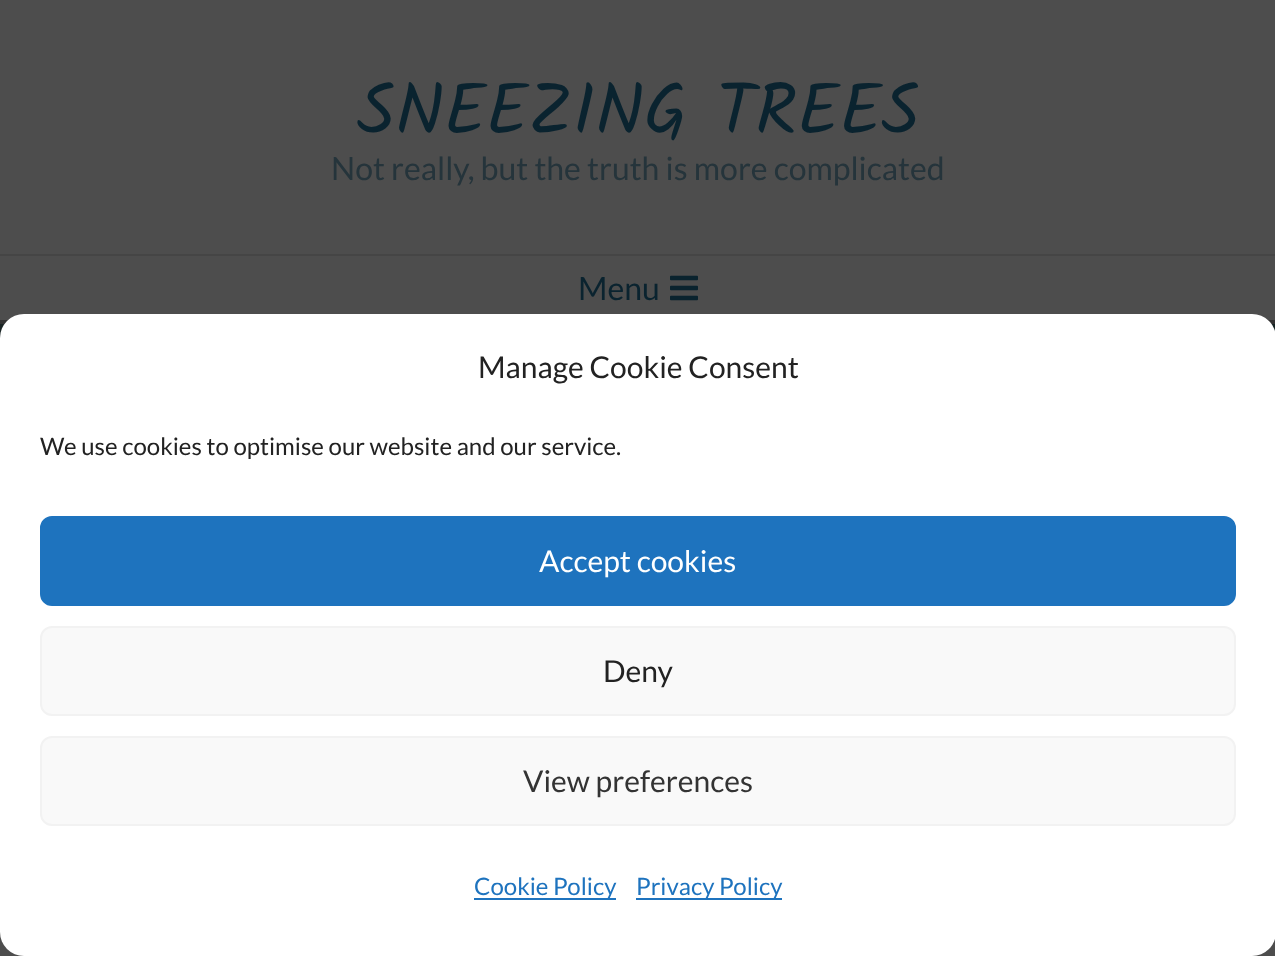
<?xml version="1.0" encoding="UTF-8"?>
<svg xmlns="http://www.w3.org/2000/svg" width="1275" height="956">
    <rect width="100%" height="100%" fill="#4D4D4D"/>
    <rect x="0" y="320" width="1275" height="4" fill="#333333"/>
    <text x="357" y="134" font-family="Kalam" font-size="72" fill="#0A232F">SNEEZING TREES</text>
    <text x="331" y="180" font-family="Lato" font-size="32" fill="#25343B">Not really, but the truth is more complicated</text>
    <rect x="0" y="254" width="1275" height="2" fill="#454545"/>
    <text x="578" y="300" font-family="Lato" font-size="32" fill="#0A232F">Menu</text>
    <image x="670" y="275" width="28" height="26" href="img_01.png"/>
    <image x="0" y="324" width="1275" height="14" href="img_02.png"/>
    <rect x="0" y="314" width="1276" height="642" rx="24" fill="#FFFFFF"/>
    <text x="478" y="378" font-family="Lato" font-size="30" fill="#222222">Manage Cookie Consent</text>
    <text x="40" y="455" font-family="Lato" font-size="24" fill="#222222">We use cookies to optimise our website and our service.</text>
    <rect x="41" y="517" width="1194" height="88" rx="11" fill="#1E73BE" stroke="#1E73BE" stroke-width="2"/>
    <text x="539" y="572" font-family="Lato" font-size="30" fill="#FFFFFF">Accept cookies</text>
    <rect x="41" y="627" width="1194" height="88" rx="11" fill="#F9F9F9" stroke="#F2F2F2" stroke-width="2"/>
    <text x="603" y="682" font-family="Lato" font-size="30" fill="#222222">Deny</text>
    <rect x="41" y="737" width="1194" height="88" rx="11" fill="#F9F9F9" stroke="#F2F2F2" stroke-width="2"/>
    <text x="523" y="792" font-family="Lato" font-size="30" fill="#333333">View preferences</text>
    <rect x="474" y="898" width="142" height="2" fill="#1E73BE"/>
    <text x="474" y="895" font-family="Lato" font-size="24" fill="#1E73BE">Cookie Policy</text>
    <rect x="636" y="898" width="146" height="2" fill="#1E73BE"/>
    <text x="636" y="895" font-family="Lato" font-size="24" fill="#1E73BE">Privacy Policy</text>
</svg>
